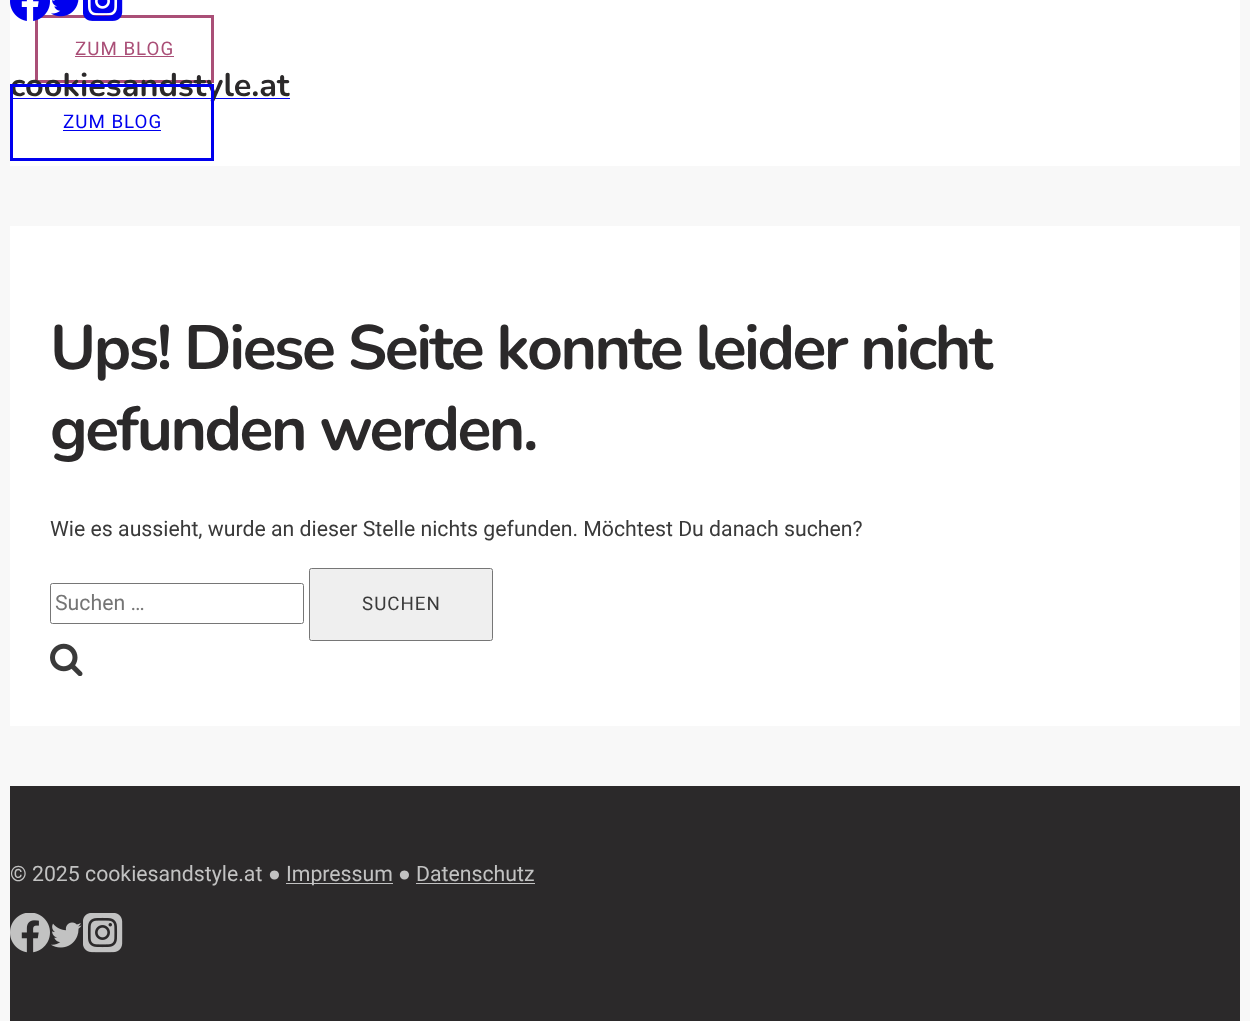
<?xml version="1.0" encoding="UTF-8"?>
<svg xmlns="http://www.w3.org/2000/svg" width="1250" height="1021">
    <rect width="100%" height="100%" fill="#F8F8F8"/>
    <rect x="10" y="0" width="1230" height="166" fill="#FFFFFF"/>
    <rect x="36.5" y="16.5" width="176" height="65" fill="none" stroke="#AA4F77" stroke-width="3"/>
    <image x="10" y="0" width="40" height="21" href="img_01.png"/>
    <image x="51" y="0" width="28" height="17" href="img_02.png"/>
    <image x="83" y="0" width="40" height="21" href="img_03.png"/>
    <text x="75" y="55" font-family="Roboto" font-size="18.75" letter-spacing="1" fill="#AA4F77">ZUM BLOG</text>
    <rect x="75" y="56" width="99" height="1" fill="#AA4F77"/>
    <rect x="10" y="98" width="280" height="1" fill="#0000EE"/>
    <text x="10" y="96" font-family="Nunito" font-size="32.5" font-weight="200" fill="#2B292A">cookiesandstyle.at</text>
    <rect x="11.5" y="85.5" width="201" height="74" fill="none" stroke="#0000EE" stroke-width="3"/>
    <text x="63" y="128" font-family="Roboto" font-size="18.75" letter-spacing="1" fill="#0000EE">ZUM BLOG</text>
    <rect x="63" y="130" width="98" height="1" fill="#0000EE"/>
    <rect x="10" y="226" width="1230" height="500" fill="#FFFFFF"/>
    <text font-family="Nunito" font-size="62.5" font-weight="200" letter-spacing="-2.5" fill="#2B292A">
        <tspan x="50" y="369">Ups! Diese Seite konnte leider nicht</tspan>
        <tspan x="50" y="450">gefunden werden.</tspan>
    </text>
    <text x="50" y="536" font-family="Roboto" font-size="21.25" fill="#3A3A3A">Wie es aussieht, wurde an dieser Stelle nichts gefunden. Möchtest Du danach suchen?</text>
    <rect x="50.5" y="583.5" width="253" height="40" rx="2" fill="none" stroke="#767676"/>
    <text x="55" y="610" font-family="Roboto" font-size="21.25" fill="#757575">Suchen …</text>
    <rect x="309.5" y="568.5" width="183" height="72" rx="2" fill="#EFEFEF" stroke="#767676"/>
    <text x="362" y="610" font-family="Roboto" font-size="18.75" letter-spacing="1" fill="#3A3A3A">SUCHEN</text>
    <image x="50" y="643" width="33" height="33" href="img_04.png"/>
    <rect x="10" y="786" width="1230" height="235" fill="#2B292A"/>
    <text x="10" y="881" font-family="Roboto" font-size="21.25" fill="#C2C2C2">© 2025 cookiesandstyle.at</text>
    <text x="268" y="881" font-family="Liberation Sans" font-size="21.25" fill="#C2C2C2">●</text>
    <rect x="286" y="883" width="107" height="1" fill="#C2C2C2"/>
    <text x="286" y="881" font-family="Roboto" font-size="21.25" fill="#C2C2C2">Impressum</text>
    <text x="398" y="881" font-family="Liberation Sans" font-size="21.25" fill="#C2C2C2">●</text>
    <text x="416" y="881" font-family="Roboto" font-size="21.25" fill="#C2C2C2">Datenschutz</text>
    <rect x="416" y="883" width="119" height="1" fill="#C2C2C2"/>
    <image x="10" y="913" width="40" height="40" href="img_05.png"/>
    <image x="51" y="922" width="31" height="26" href="img_06.png"/>
    <image x="83" y="913" width="40" height="40" href="img_07.png"/>
</svg>
